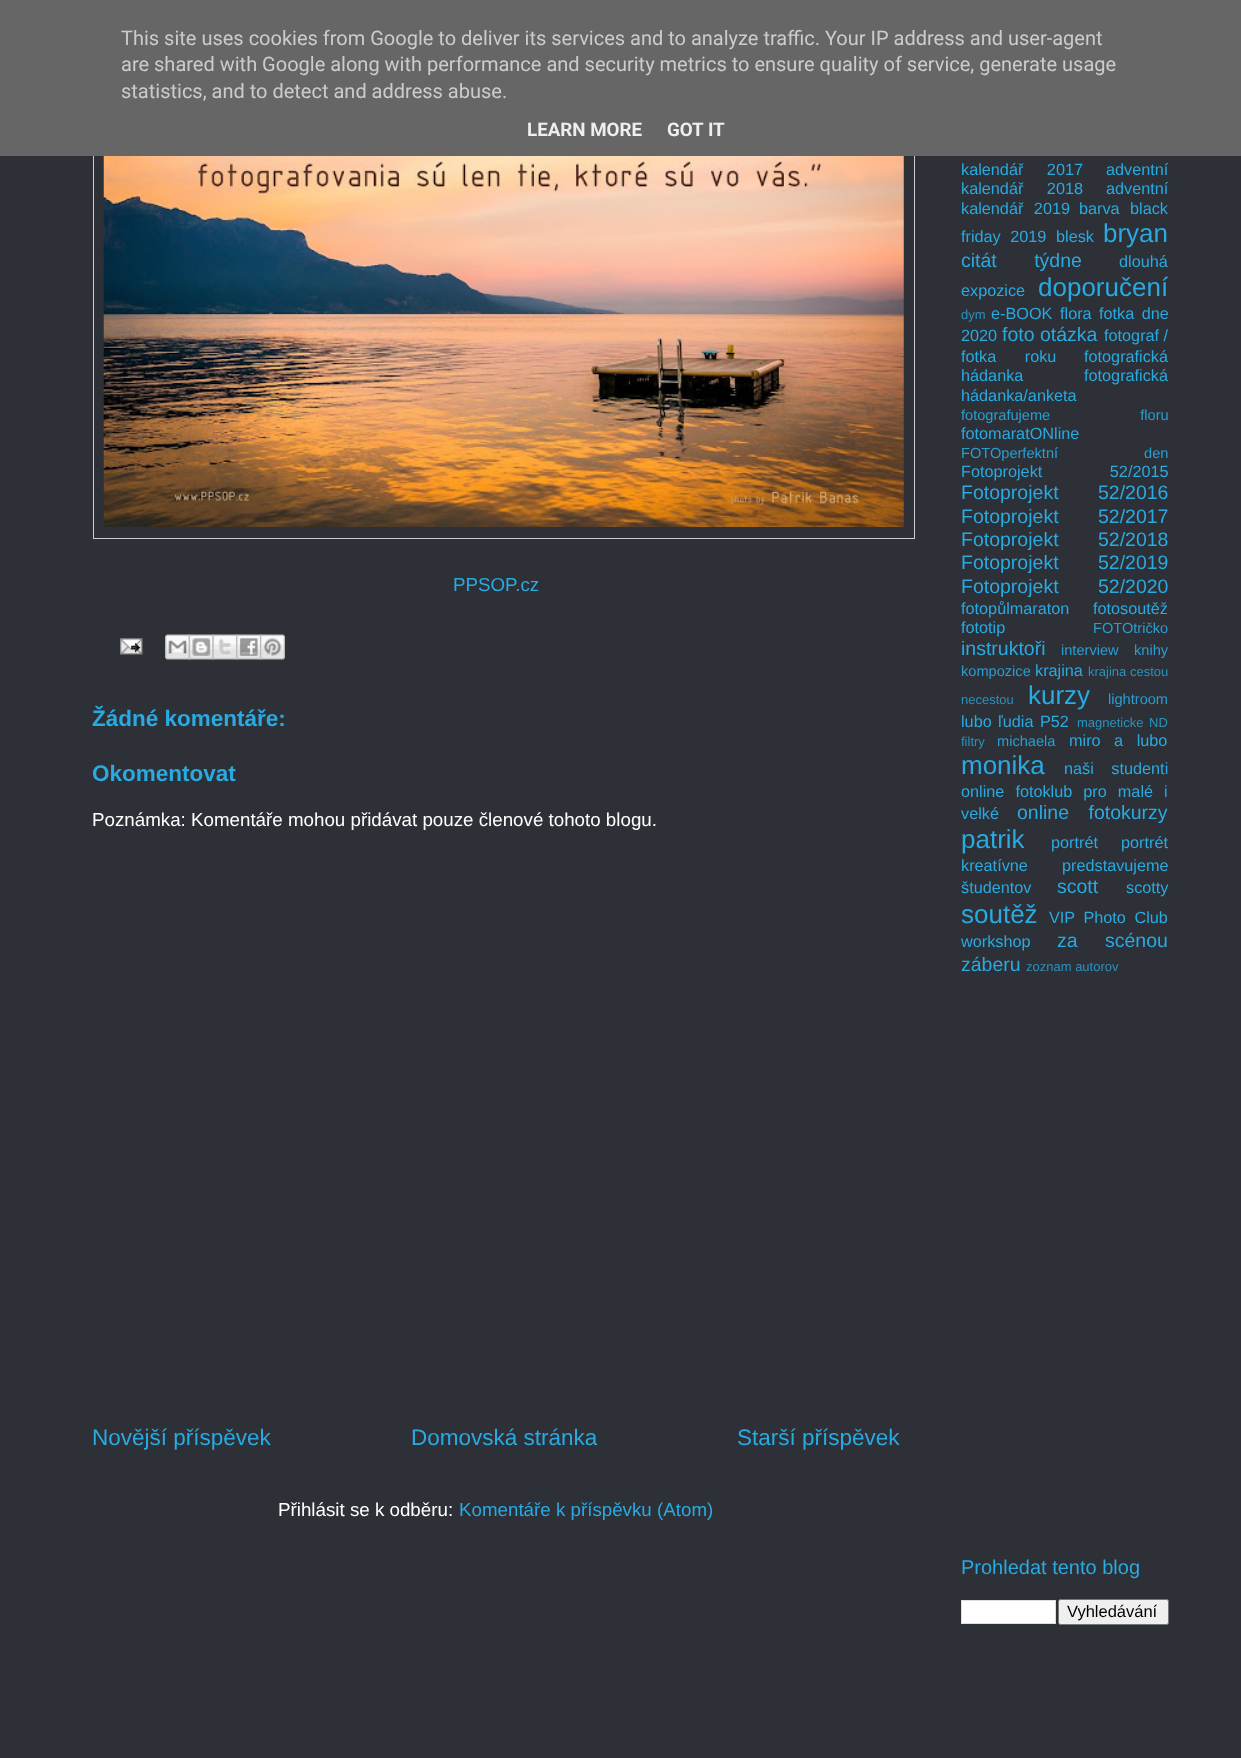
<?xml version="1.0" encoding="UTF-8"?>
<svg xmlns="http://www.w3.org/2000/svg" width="1241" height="1758">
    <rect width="100%" height="100%" fill="#2D3037"/>
    <rect x="93.5" y="-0.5" width="821" height="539" fill="none" stroke="#CCCCCC"/>
    <rect x="0" y="0" width="1241" height="156" fill="#666666"/>
    <text font-family="Roboto" font-size="20" fill="#CCCCCC">
        <tspan x="121" y="45">This site uses cookies from Google to deliver its services and to analyze traffic. Your IP address and user-agent</tspan>
        <tspan x="121" y="71">are shared with Google along with performance and security metrics to ensure quality of service, generate usage</tspan>
        <tspan x="121" y="98">statistics, and to detect and address abuse.</tspan>
    </text>
    <text x="527" y="136" font-family="Roboto" font-size="18.75" font-weight="700" fill="#EEEEEE">LEARN MORE</text>
    <text x="667" y="136" font-family="Roboto" font-size="18.75" font-weight="700" fill="#EEEEEE">GOT IT</text>
    <image x="103" y="156" width="801" height="371" href="img_01.png"/>
    <text x="453" y="591" font-family="Liberation Sans" font-size="18.75" fill="#29AAE1">PPSOP.cz</text>
    <image x="120" y="638" width="23" height="17" href="img_02.png"/>
    <image x="165" y="634" width="25" height="26" href="img_03.png"/>
    <image x="188" y="634" width="26" height="26" href="img_04.png"/>
    <image x="212" y="634" width="26" height="26" href="img_05.png"/>
    <image x="236" y="634" width="26" height="26" href="img_06.png"/>
    <image x="260" y="634" width="25" height="26" href="img_07.png"/>
    <text x="92" y="726" font-family="Liberation Sans" font-size="22.5" font-weight="700" fill="#29AAE1">Žádné komentáře:</text>
    <text x="92" y="781" font-family="Liberation Sans" font-size="22.5" font-weight="700" fill="#29AAE1">Okomentovat</text>
    <text x="92" y="826" font-family="Liberation Sans" font-size="18.75" fill="#FFFFFF">Poznámka: Komentáře mohou přidávat pouze členové tohoto blogu.</text>
    <text x="92" y="1445" font-family="Liberation Sans" font-size="22.5" fill="#29AAE1">Novější příspěvek</text>
    <text x="411" y="1445" font-family="Liberation Sans" font-size="22.5" fill="#29AAE1">Domovská stránka</text>
    <text x="737" y="1445" font-family="Liberation Sans" font-size="22.5" fill="#29AAE1">Starší příspěvek</text>
    <text x="278" y="1516" font-family="Liberation Sans" font-size="18.75" fill="#FFFFFF">Přihlásit se k odběru:</text>
    <text x="459" y="1516" font-family="Liberation Sans" font-size="18.75" fill="#29AAE1">Komentáře k příspěvku (Atom)</text>
    <text x="961" y="175" word-spacing="19" font-family="Liberation Sans" font-size="16.25" fill="#29AAE1">kalendář 2017</text>
    <text x="1106" y="175" font-family="Liberation Sans" font-size="16.25" fill="#29AAE1">adventní</text>
    <text x="961" y="194" word-spacing="19" font-family="Liberation Sans" font-size="16.25" fill="#29AAE1">kalendář 2018</text>
    <text x="1106" y="194" font-family="Liberation Sans" font-size="16.25" fill="#29AAE1">adventní</text>
    <text x="961" y="214" word-spacing="6" font-family="Liberation Sans" font-size="16.25" fill="#29AAE1">kalendář 2019</text>
    <text x="1079" y="214" font-family="Liberation Sans" font-size="16.25" fill="#29AAE1">barva</text>
    <text x="1130" y="214" font-family="Liberation Sans" font-size="16.25" fill="#29AAE1">black</text>
    <text x="961" y="242" word-spacing="5" font-family="Liberation Sans" font-size="16.25" fill="#29AAE1">friday 2019</text>
    <text x="1056" y="242" font-family="Liberation Sans" font-size="16.25" fill="#29AAE1">blesk</text>
    <text x="1103" y="242" font-family="Liberation Sans" font-size="26" fill="#29AAE1">bryan</text>
    <text x="961" y="267" word-spacing="32" font-family="Liberation Sans" font-size="19.5" fill="#29AAE1">citát týdne</text>
    <text x="1119" y="267" font-family="Liberation Sans" font-size="16.25" fill="#29AAE1">dlouhá</text>
    <text x="961" y="296" font-family="Liberation Sans" font-size="16.25" fill="#29AAE1">expozice</text>
    <text x="1038" y="296" font-family="Liberation Sans" font-size="26" fill="#29AAE1">doporučení</text>
    <text x="961" y="319" font-family="Liberation Sans" font-size="13" fill="#2A92BF">dym</text>
    <text x="991" y="319" font-family="Liberation Sans" font-size="16.25" fill="#29AAE1">e-BOOK</text>
    <text x="1060" y="319" font-family="Liberation Sans" font-size="16.25" fill="#29AAE1">flora</text>
    <text x="1099" y="319" word-spacing="3" font-family="Liberation Sans" font-size="16.25" fill="#29AAE1">fotka dne</text>
    <text x="961" y="341" font-family="Liberation Sans" font-size="16.25" fill="#29AAE1">2020</text>
    <text x="1002" y="341" font-family="Liberation Sans" font-size="19.5" fill="#29AAE1">foto otázka</text>
    <text x="1104" y="341" font-family="Liberation Sans" font-size="16.25" fill="#29AAE1">fotograf /</text>
    <text x="961" y="362" word-spacing="24" font-family="Liberation Sans" font-size="16.25" fill="#29AAE1">fotka roku</text>
    <text x="1084" y="362" font-family="Liberation Sans" font-size="16.25" fill="#29AAE1">fotografická</text>
    <text x="961" y="381" font-family="Liberation Sans" font-size="16.25" fill="#29AAE1">hádanka</text>
    <text x="1084" y="381" font-family="Liberation Sans" font-size="16.25" fill="#29AAE1">fotografická</text>
    <text x="961" y="401" font-family="Liberation Sans" font-size="16.25" fill="#29AAE1">hádanka/anketa</text>
    <text x="961" y="420" word-spacing="86" font-family="Liberation Sans" font-size="14.6" fill="#299ED0">fotografujeme floru</text>
    <text x="961" y="439" font-family="Liberation Sans" font-size="16.25" fill="#29AAE1">fotomaratONline</text>
    <text x="961" y="458" word-spacing="82" font-family="Liberation Sans" font-size="14.6" fill="#299ED0">FOTOperfektní den</text>
    <text x="961" y="477" word-spacing="63" font-family="Liberation Sans" font-size="16.25" fill="#29AAE1">Fotoprojekt 52/2015</text>
    <text font-family="Liberation Sans" font-size="19.5" fill="#29AAE1">
        <tspan x="961" y="499" word-spacing="34">Fotoprojekt 52/2016</tspan>
        <tspan x="961" y="523" word-spacing="34">Fotoprojekt 52/2017</tspan>
        <tspan x="961" y="546" word-spacing="34">Fotoprojekt 52/2018</tspan>
        <tspan x="961" y="569" word-spacing="34">Fotoprojekt 52/2019</tspan>
        <tspan x="961" y="593" word-spacing="34">Fotoprojekt 52/2020</tspan>
    </text>
    <text x="961" y="614" font-family="Liberation Sans" font-size="16.25" fill="#29AAE1">fotopůlmaraton</text>
    <text x="1093" y="614" font-family="Liberation Sans" font-size="16.25" fill="#29AAE1">fotosoutěž</text>
    <text x="961" y="633" font-family="Liberation Sans" font-size="16.25" fill="#29AAE1">fototip</text>
    <text x="1093" y="633" font-family="Liberation Sans" font-size="14.6" fill="#299ED0">FOTOtričko</text>
    <text x="961" y="655" font-family="Liberation Sans" font-size="19.5" fill="#29AAE1">instruktoři</text>
    <text x="1061" y="655" font-family="Liberation Sans" font-size="14.6" fill="#299ED0">interview</text>
    <text x="1134" y="655" font-family="Liberation Sans" font-size="14.6" fill="#299ED0">knihy</text>
    <text x="961" y="676" font-family="Liberation Sans" font-size="14.6" fill="#299ED0">kompozice</text>
    <text x="1035" y="676" font-family="Liberation Sans" font-size="16.25" fill="#29AAE1">krajina</text>
    <text x="1088" y="676" font-family="Liberation Sans" font-size="13" fill="#2A92BF">krajina cestou</text>
    <text x="961" y="704" font-family="Liberation Sans" font-size="13" fill="#2A92BF">necestou</text>
    <text x="1028" y="704" font-family="Liberation Sans" font-size="26" fill="#29AAE1">kurzy</text>
    <text x="1108" y="704" font-family="Liberation Sans" font-size="14.6" fill="#299ED0">lightroom</text>
    <text x="961" y="727" font-family="Liberation Sans" font-size="16.25" fill="#29AAE1">lubo</text>
    <text x="998" y="727" word-spacing="2" font-family="Liberation Sans" font-size="16.25" fill="#29AAE1">ľudia P52</text>
    <text x="1077" y="727" word-spacing="2" font-family="Liberation Sans" font-size="13" fill="#2A92BF">magneticke ND</text>
    <text x="961" y="746" font-family="Liberation Sans" font-size="13" fill="#2A92BF">filtry</text>
    <text x="997" y="746" font-family="Liberation Sans" font-size="14.6" fill="#299ED0">michaela</text>
    <text x="1069" y="746" word-spacing="9" font-family="Liberation Sans" font-size="16.25" fill="#29AAE1">miro a lubo</text>
    <text x="961" y="774" font-family="Liberation Sans" font-size="26" fill="#29AAE1">monika</text>
    <text x="1064" y="774" word-spacing="13" font-family="Liberation Sans" font-size="16.25" fill="#29AAE1">naši studenti</text>
    <text font-family="Liberation Sans" font-size="16.25" fill="#29AAE1">
        <tspan x="961" y="797" word-spacing="6.5">online fotoklub pro malé i</tspan>
        <tspan x="961" y="819">velké</tspan>
    </text>
    <text x="1017" y="819" word-spacing="14" font-family="Liberation Sans" font-size="19.5" fill="#29AAE1">online fotokurzy</text>
    <text x="961" y="848" font-family="Liberation Sans" font-size="26" fill="#29AAE1">patrik</text>
    <text x="1051" y="848" font-family="Liberation Sans" font-size="16.25" fill="#29AAE1">portrét</text>
    <text x="1121" y="848" font-family="Liberation Sans" font-size="16.25" fill="#29AAE1">portrét</text>
    <text x="961" y="871" font-family="Liberation Sans" font-size="16.25" fill="#29AAE1">kreatívne</text>
    <text x="1062" y="871" font-family="Liberation Sans" font-size="16.25" fill="#29AAE1">predstavujeme</text>
    <text x="961" y="893" font-family="Liberation Sans" font-size="16.25" fill="#29AAE1">študentov</text>
    <text x="1057" y="893" font-family="Liberation Sans" font-size="19.5" fill="#29AAE1">scott</text>
    <text x="1126" y="893" font-family="Liberation Sans" font-size="16.25" fill="#29AAE1">scotty</text>
    <text x="961" y="923" font-family="Liberation Sans" font-size="26" fill="#29AAE1">soutěž</text>
    <text x="1049" y="923" word-spacing="4" font-family="Liberation Sans" font-size="16.25" fill="#29AAE1">VIP Photo Club</text>
    <text x="961" y="947" font-family="Liberation Sans" font-size="16.25" fill="#29AAE1">workshop</text>
    <text x="1057" y="947" word-spacing="22" font-family="Liberation Sans" font-size="19.5" fill="#29AAE1">za scénou</text>
    <text x="961" y="971" font-family="Liberation Sans" font-size="19.5" fill="#29AAE1">záberu</text>
    <text x="1026" y="971" font-family="Liberation Sans" font-size="13" fill="#2A92BF">zoznam autorov</text>
    <text x="961" y="1574" font-family="Liberation Sans" font-size="20" fill="#29AAE1">Prohledat tento blog</text>
    <rect x="961.5" y="1600.5" width="94" height="23" fill="#FFFFFF" stroke="#DDDDDD"/>
    <rect x="1058.5" y="1599.5" width="110" height="25" rx="2" fill="#EFEFEF" stroke="#767676"/>
    <text x="1067" y="1617" font-family="Liberation Sans" font-size="16.5" fill="#000000">Vyhledávání</text>
</svg>
